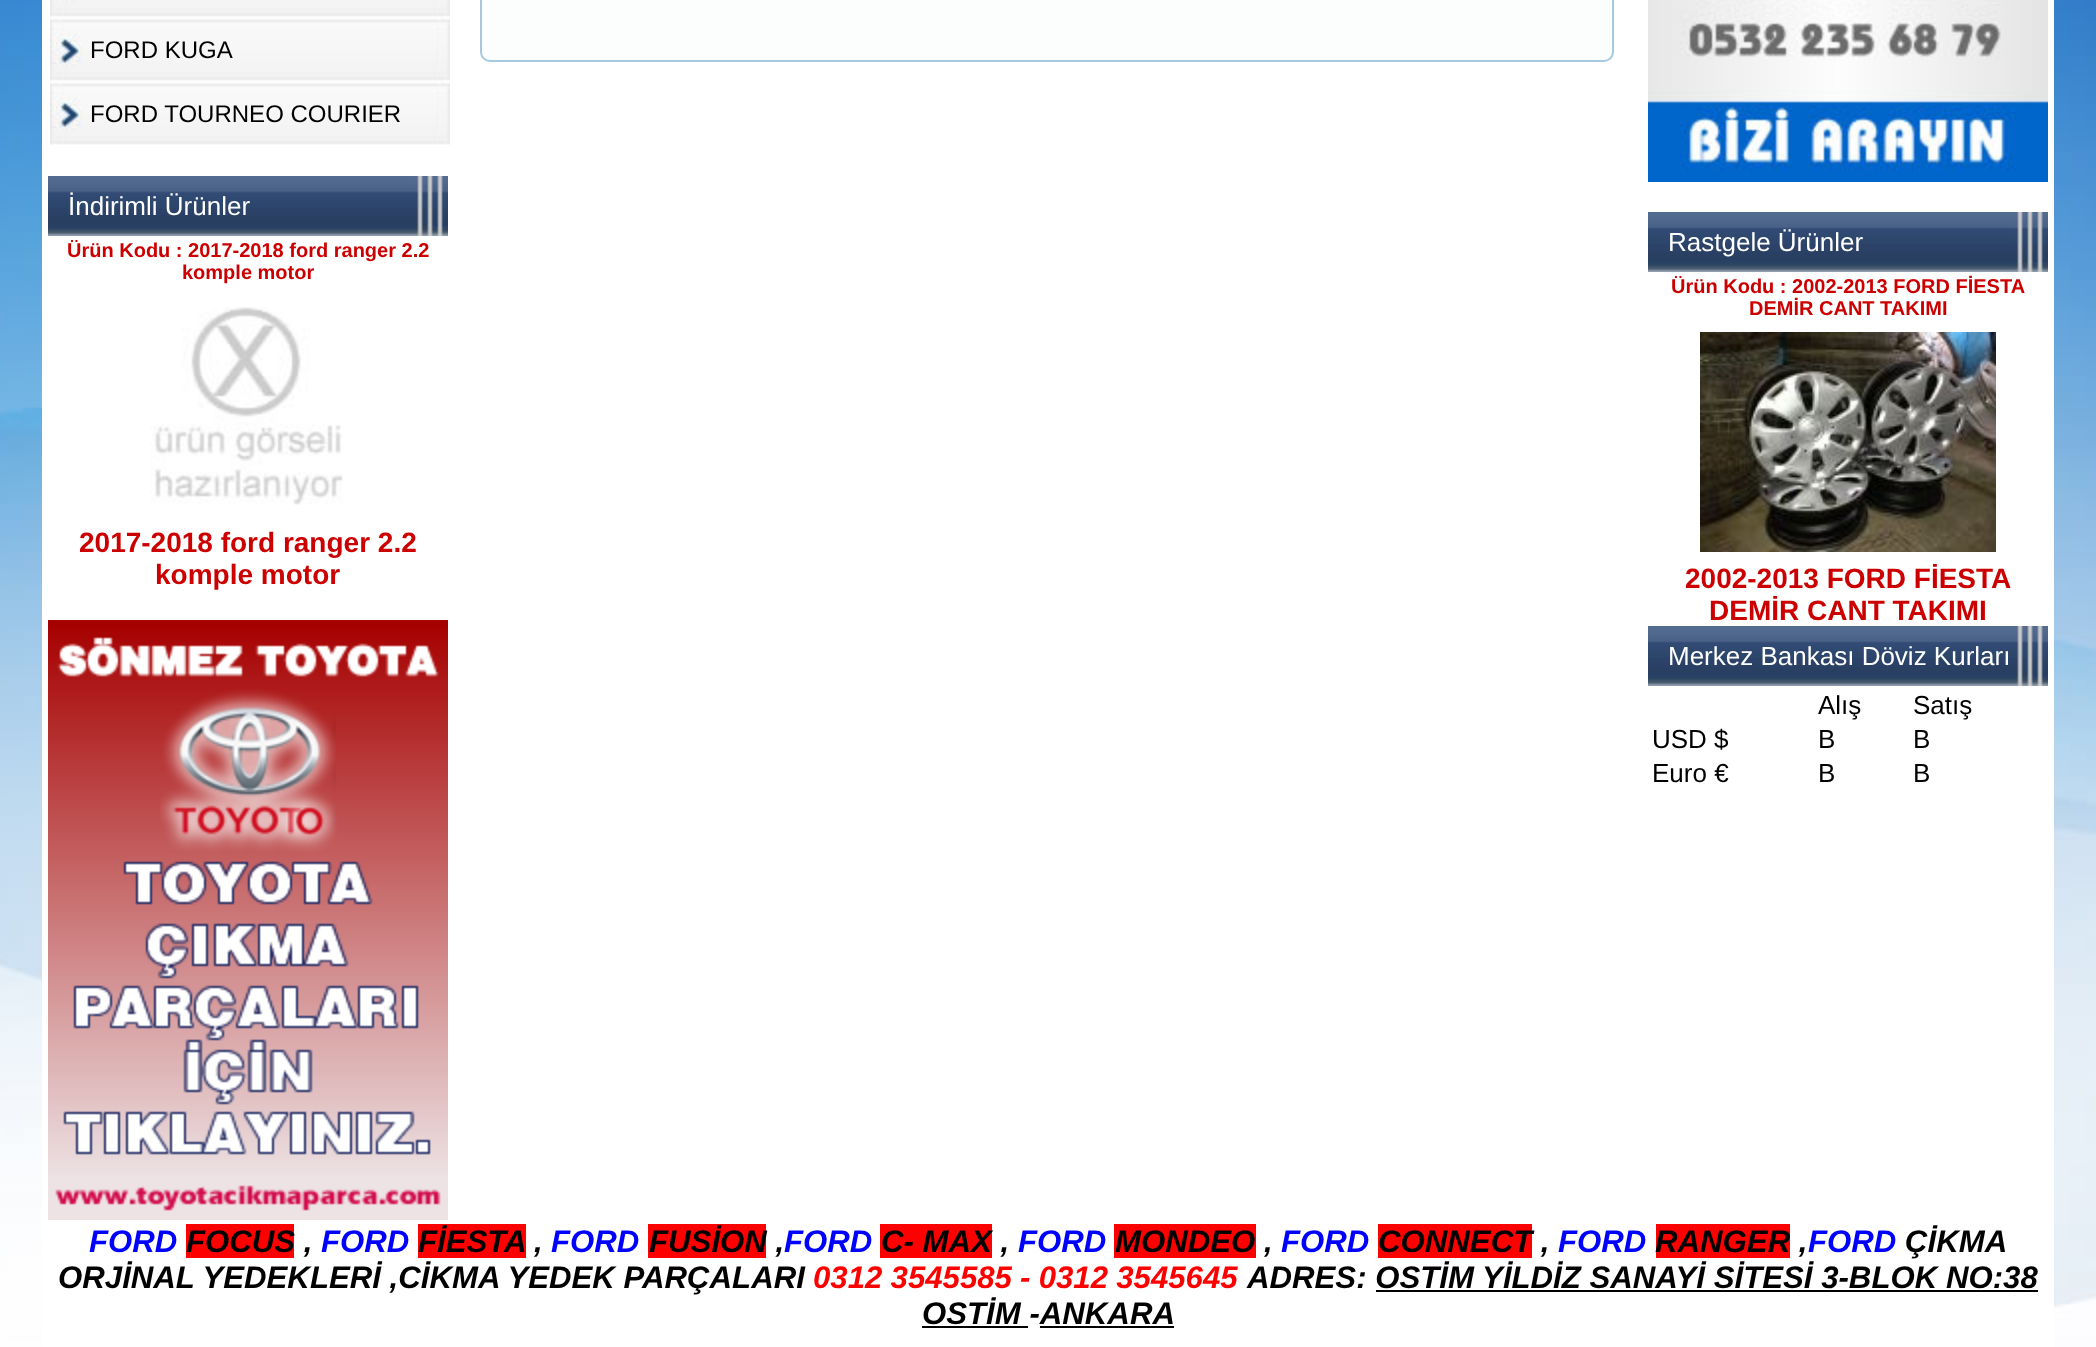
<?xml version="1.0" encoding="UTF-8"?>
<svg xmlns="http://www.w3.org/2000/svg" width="2096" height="1347">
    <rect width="100%" height="100%" fill="#FFFFFF"/>
    <image x="0" y="0" width="2096" height="1347" href="img_01.png"/>
    <rect x="42" y="0" width="2012" height="1347" fill="#FFFFFF"/>
    <rect x="481" y="-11" width="1132" height="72" rx="9" fill="#FCFDFD" stroke="#A6C9E2" stroke-width="2"/>
    <image x="50" y="0" width="400" height="17" href="img_02.png"/>
    <image x="50" y="18" width="400" height="63" href="img_03.png"/>
    <text x="90" y="58" font-family="Liberation Sans" font-size="24" fill="#000000">FORD KUGA</text>
    <image x="50" y="82" width="400" height="63" href="img_03.png"/>
    <text x="90" y="122" font-family="Liberation Sans" font-size="24" fill="#000000">FORD TOURNEO COURIER</text>
    <image x="48" y="176" width="400" height="60" href="img_04.png"/>
    <text x="68" y="215" font-family="Liberation Sans" font-size="26" fill="#FFFFFF">İndirimli Ürünler</text>
    <text x="67" y="257" font-family="Liberation Sans" font-size="20" font-weight="700" fill="#CC0000">Ürün Kodu : 2017-2018 ford ranger 2.2</text>
    <text x="182" y="279" font-family="Liberation Sans" font-size="20" font-weight="700" fill="#CC0000">komple motor</text>
    <image x="150" y="307" width="193" height="198" href="img_05.png"/>
    <text x="79" y="552" font-family="Liberation Sans" font-size="28" font-weight="700" fill="#CC0000">2017-2018 ford ranger 2.2</text>
    <text x="155" y="584" font-family="Liberation Sans" font-size="28" font-weight="700" fill="#CC0000">komple motor</text>
    <image x="48" y="620" width="400" height="600" href="img_06.png"/>
    <image x="1648" y="0" width="400" height="182" href="img_07.png"/>
    <image x="1648" y="212" width="400" height="60" href="img_04.png"/>
    <text x="1668" y="251" font-family="Liberation Sans" font-size="26" fill="#FFFFFF">Rastgele Ürünler</text>
    <text x="1671" y="293" font-family="Liberation Sans" font-size="20" font-weight="700" fill="#CC0000">Ürün Kodu : 2002-2013 FORD FİESTA</text>
    <text x="1749" y="315" font-family="Liberation Sans" font-size="20" font-weight="700" fill="#CC0000">DEMİR CANT TAKIMI</text>
    <image x="1700" y="332" width="296" height="220" href="img_08.png"/>
    <text x="1685" y="588" font-family="Liberation Sans" font-size="28" font-weight="700" fill="#CC0000">2002-2013 FORD FİESTA</text>
    <text x="1709" y="620" font-family="Liberation Sans" font-size="28" font-weight="700" fill="#CC0000">DEMİR CANT TAKIMI</text>
    <image x="1648" y="626" width="400" height="60" href="img_04.png"/>
    <text x="1668" y="665" font-family="Liberation Sans" font-size="26" fill="#FFFFFF">Merkez Bankası Döviz Kurları</text>
    <text x="1818" y="714" font-family="Liberation Sans" font-size="26" fill="#000000">Alış</text>
    <text x="1913" y="714" font-family="Liberation Sans" font-size="26" fill="#000000">Satış</text>
    <text x="1652" y="748" font-family="Liberation Sans" font-size="26" fill="#000000">USD $</text>
    <text x="1818" y="748" font-family="Liberation Sans" font-size="26" fill="#000000">B</text>
    <text x="1913" y="748" font-family="Liberation Sans" font-size="26" fill="#000000">B</text>
    <text x="1652" y="782" font-family="Liberation Sans" font-size="26" fill="#000000">Euro €</text>
    <text x="1818" y="782" font-family="Liberation Sans" font-size="26" fill="#000000">B</text>
    <text x="1913" y="782" font-family="Liberation Sans" font-size="26" fill="#000000">B</text>
    <text x="89" y="1252" font-family="Liberation Sans" font-size="31.2" font-weight="700" font-style="italic" fill="#0000FF">FORD</text>
    <rect x="186" y="1224" width="108" height="34" fill="#FF0000"/>
    <text x="186" y="1252" font-family="Liberation Sans" font-size="31.2" font-weight="700" font-style="italic" fill="#000000">FOCUS ,</text>
    <text x="321" y="1252" font-family="Liberation Sans" font-size="31.2" font-weight="700" font-style="italic" fill="#0000FF">FORD</text>
    <rect x="418" y="1224" width="108" height="34" fill="#FF0000"/>
    <text x="418" y="1252" font-family="Liberation Sans" font-size="31.2" font-weight="700" font-style="italic" fill="#000000">FİESTA</text>
    <text x="534" y="1252" font-family="Liberation Sans" font-size="31.2" font-weight="700" font-style="italic" fill="#000000">,</text>
    <text x="551" y="1252" font-family="Liberation Sans" font-size="31.2" font-weight="700" font-style="italic" fill="#0000FF">FORD</text>
    <rect x="648" y="1224" width="118" height="34" fill="#FF0000"/>
    <text x="649" y="1252" font-family="Liberation Sans" font-size="31.2" font-weight="700" font-style="italic" fill="#000000">FUSİON ,</text>
    <text x="784" y="1252" font-family="Liberation Sans" font-size="31.2" font-weight="700" font-style="italic" fill="#0000FF">FORD</text>
    <rect x="880" y="1224" width="112" height="34" fill="#FF0000"/>
    <text x="881" y="1252" font-family="Liberation Sans" font-size="31.2" font-weight="700" font-style="italic" fill="#000000">C- MAX ,</text>
    <text x="1018" y="1252" font-family="Liberation Sans" font-size="31.2" font-weight="700" font-style="italic" fill="#0000FF">FORD</text>
    <rect x="1114" y="1224" width="142" height="34" fill="#FF0000"/>
    <text x="1115" y="1252" font-family="Liberation Sans" font-size="31.2" font-weight="700" font-style="italic" fill="#000000">MONDEO ,</text>
    <text x="1281" y="1252" font-family="Liberation Sans" font-size="31.2" font-weight="700" font-style="italic" fill="#0000FF">FORD</text>
    <rect x="1378" y="1224" width="154" height="34" fill="#FF0000"/>
    <text x="1378" y="1252" font-family="Liberation Sans" font-size="31.2" font-weight="700" font-style="italic" fill="#000000">CONNECT ,</text>
    <text x="1558" y="1252" font-family="Liberation Sans" font-size="31.2" font-weight="700" font-style="italic" fill="#0000FF">FORD</text>
    <rect x="1656" y="1224" width="134" height="34" fill="#FF0000"/>
    <text x="1655" y="1252" font-family="Liberation Sans" font-size="31.2" font-weight="700" font-style="italic" fill="#000000">RANGER ,</text>
    <text x="1808" y="1252" font-family="Liberation Sans" font-size="31.2" font-weight="700" font-style="italic" fill="#0000FF">FORD</text>
    <text x="1905" y="1252" font-family="Liberation Sans" font-size="31.2" font-weight="700" font-style="italic" fill="#000000">ÇİKMA</text>
    <text x="58" y="1288" font-family="Liberation Sans" font-size="31.2" font-weight="700" font-style="italic" fill="#000000">ORJİNAL YEDEKLERİ ,CİKMA YEDEK PARÇALARI</text>
    <text x="813" y="1288" word-spacing="-0.5" font-family="Liberation Sans" font-size="31.2" font-weight="700" font-style="italic" fill="#FF0000">0312 3545585 - 0312 3545645</text>
    <text x="1247" y="1288" font-family="Liberation Sans" font-size="31.2" font-weight="700" font-style="italic" fill="#000000">ADRES: OSTİM YİLDİZ SANAYİ SİTESİ 3-BLOK NO:38</text>
    <rect x="1376" y="1290" width="662" height="2" fill="#000000"/>
    <text x="922" y="1324" font-family="Liberation Sans" font-size="31.2" font-weight="700" font-style="italic" fill="#000000">OSTİM -ANKARA</text>
    <rect x="922" y="1326" width="106" height="2" fill="#000000"/>
    <rect x="1040" y="1326" width="134" height="2" fill="#000000"/>
</svg>
